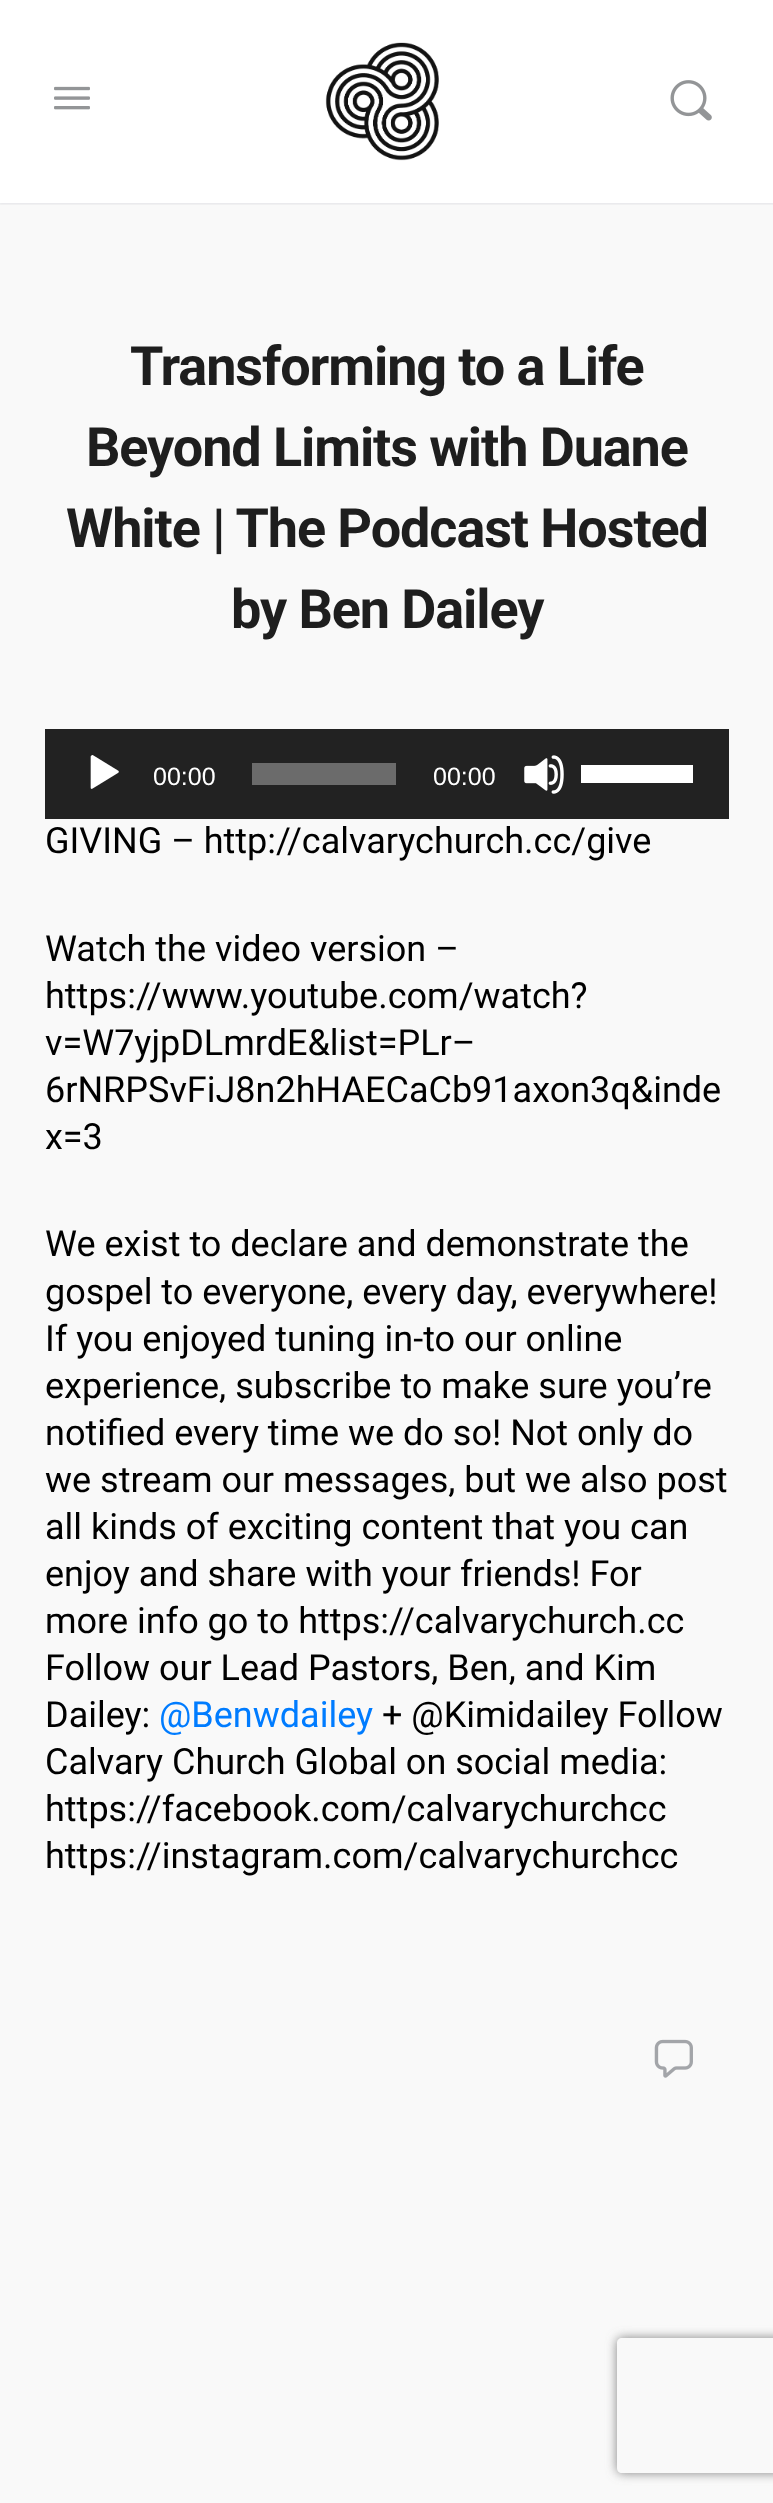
<?xml version="1.0" encoding="UTF-8"?>
<svg xmlns="http://www.w3.org/2000/svg" width="773" height="2503">
    <defs>
        <filter id="blur1" x="-50%" y="-200%" width="200%" height="500%"><feGaussianBlur stdDeviation="1"/></filter>
        <clipPath id="clip1"><path d="M 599 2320 H 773 V 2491 H 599 Z M 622 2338 H 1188 C 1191 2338 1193 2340 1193 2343 V 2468 C 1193 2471 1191 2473 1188 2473 H 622 C 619 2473 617 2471 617 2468 V 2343 C 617 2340 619 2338 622 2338 Z" clip-rule="evenodd"/></clipPath>
        <filter id="blur2" x="-50%" y="-200%" width="200%" height="500%"><feGaussianBlur stdDeviation="5.5"/></filter>
    </defs>
    <rect width="100%" height="100%" fill="#F9F9F9"/>
    <rect x="0" y="0" width="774" height="203" fill="#41476C" fill-opacity="0.15" filter="url(#blur1)"/>
    <rect x="0" y="203" width="773" height="2" fill="#8B8D9D" fill-opacity="0.05"/>
    <rect x="0" y="0" width="773" height="203" fill="#FFFFFF"/>
    <image x="54" y="86" width="36" height="24" href="img_01.png"/>
    <image x="325" y="42" width="114" height="119" href="img_02.png"/>
    <image x="670" y="80" width="42" height="41" href="img_03.png"/>
    <text x="130" y="385" font-family="Roboto" font-size="54" font-weight="700" letter-spacing="-1.1" fill="#1E1E1E">Transforming to a Life</text>
    <text x="86" y="466" font-family="Roboto" font-size="54" font-weight="700" letter-spacing="-1.1" fill="#1E1E1E">Beyond Limits with Duane</text>
    <text x="66" y="547" font-family="Roboto" font-size="54" font-weight="700" letter-spacing="-1.1" fill="#1E1E1E">White | The Podcast Hosted</text>
    <text x="231" y="628" font-family="Roboto" font-size="54" font-weight="700" letter-spacing="-1.1" fill="#1E1E1E">by Ben Dailey</text>
    <rect x="45" y="729" width="684" height="90" fill="#222222"/>
    <image x="90" y="755" width="29" height="34" href="img_04.png"/>
    <text x="153" y="785" font-family="Liberation Sans" font-size="25" fill="#FFFFFF">00:00</text>
    <rect x="252" y="763" width="144" height="22" fill="#6B6B6B"/>
    <text x="433" y="785" font-family="Liberation Sans" font-size="25" fill="#FFFFFF">00:00</text>
    <image x="524" y="755" width="40" height="39" href="img_05.png"/>
    <rect x="581" y="765" width="112" height="18" fill="#FFFFFF"/>
    <text x="45" y="853" font-family="Roboto" font-size="36" fill="#000000">GIVING – http://calvarychurch.cc/give</text>
    <text font-family="Roboto" font-size="36" fill="#000000">
        <tspan x="45" y="961">Watch the video version –</tspan>
        <tspan x="45" y="1008">https://www.youtube.com/watch?</tspan>
        <tspan x="45" y="1055">v=W7yjpDLmrdE&amp;list=PLr–</tspan>
        <tspan x="45" y="1102">6rNRPSvFiJ8n2hHAECaCb91axon3q&amp;inde</tspan>
        <tspan x="45" y="1149">x=3</tspan>
    </text>
    <text font-family="Roboto" font-size="36" fill="#000000">
        <tspan x="45" y="1256">We exist to declare and demonstrate the</tspan>
        <tspan x="45" y="1304">gospel to everyone, every day, everywhere!</tspan>
        <tspan x="45" y="1351">If you enjoyed tuning in-to our online</tspan>
        <tspan x="45" y="1398">experience, subscribe to make sure you’re</tspan>
        <tspan x="45" y="1445">notified every time we do so! Not only do</tspan>
        <tspan x="45" y="1492">we stream our messages, but we also post</tspan>
        <tspan x="45" y="1539">all kinds of exciting content that you can</tspan>
        <tspan x="45" y="1586">enjoy and share with your friends! For</tspan>
        <tspan x="45" y="1633">more info go to https://calvarychurch.cc</tspan>
        <tspan x="45" y="1680">Follow our Lead Pastors, Ben, and Kim</tspan>
        <tspan x="45" y="1727">Dailey:</tspan>
    </text>
    <text x="159" y="1727" font-family="Roboto" font-size="36" fill="#007CFF">@Benwdailey</text>
    <text x="382" y="1727" font-family="Roboto" font-size="36" fill="#000000">+ @Kimidailey Follow</text>
    <text font-family="Roboto" font-size="36" fill="#000000">
        <tspan x="45" y="1774">Calvary Church Global on social media:</tspan>
        <tspan x="45" y="1821">https://facebook.com/calvarychurchcc</tspan>
        <tspan x="45" y="1868">https://instagram.com/calvarychurchcc</tspan>
    </text>
    <image x="654" y="2039" width="39" height="39" href="img_06.png"/>
    <g clip-path="url(#clip1)">
        <rect x="617" y="2338" width="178" height="135" rx="5" fill="#808080" filter="url(#blur2)"/>
    </g>
</svg>
